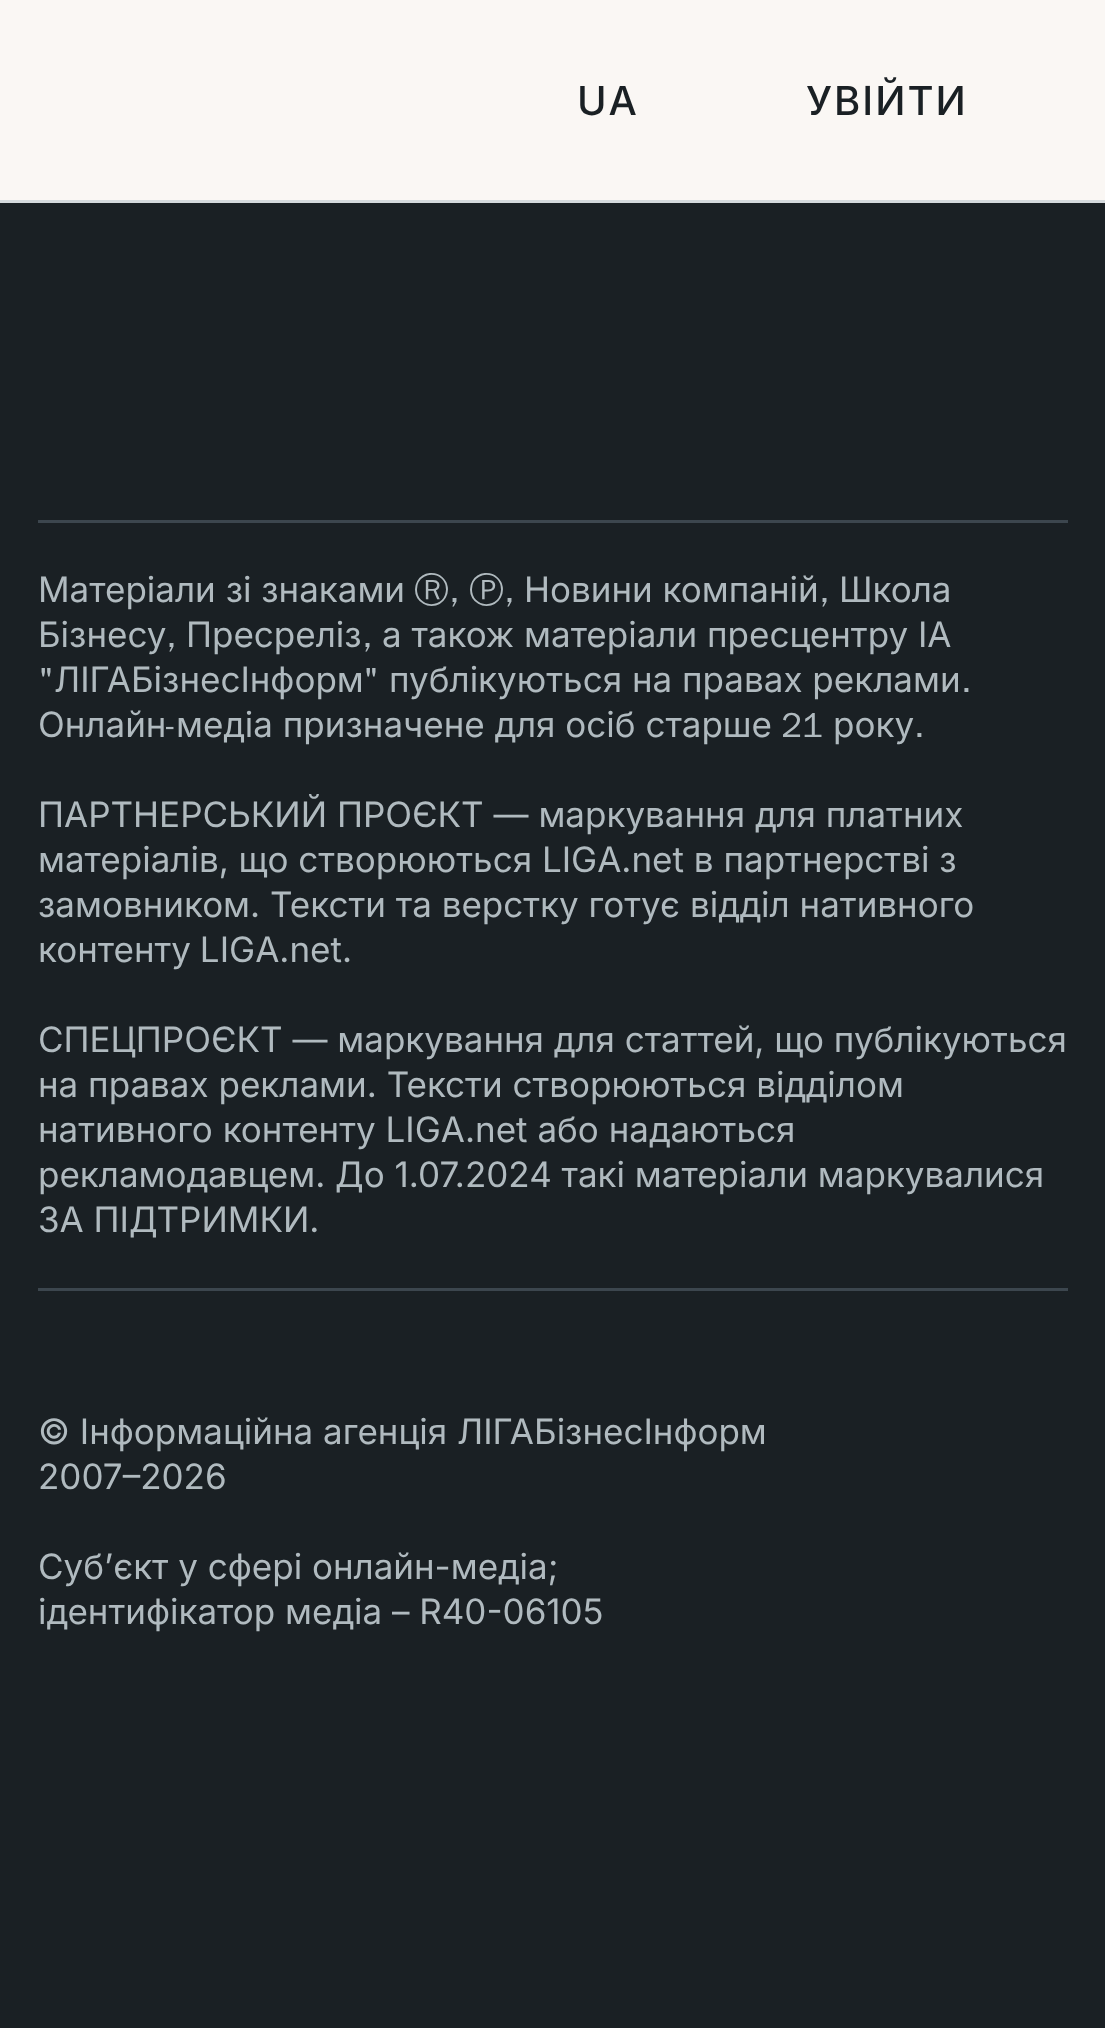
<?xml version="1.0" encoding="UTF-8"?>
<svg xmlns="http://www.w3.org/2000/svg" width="1105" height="2028">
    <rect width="100%" height="100%" fill="#1A2024"/>
    <rect x="0" y="0" width="1105" height="200" fill="#FAF7F4"/>
    <rect x="0" y="200" width="1105" height="3" fill="#D5DADD"/>
    <text x="577" y="115" font-family="Inter" font-size="40" font-weight="500" letter-spacing="2" fill="#1A2024">UA</text>
    <text x="806" y="115" font-family="Inter" font-size="40" font-weight="500" letter-spacing="2" fill="#1A2024">УВІЙТИ</text>
    <rect x="38" y="520" width="1030" height="3" fill="#3C464E"/>
    <rect x="38" y="1288" width="1030" height="3" fill="#3C464E"/>
    <text x="38" y="602" font-family="Inter" font-size="35" fill="#B0BABF">Матеріали зі знаками</text>
    <text x="414" y="602" font-family="WenQuanYi Zen Hei" font-size="35" font-weight="500" fill="#B0BABF">Ⓡ,</text>
    <text x="469" y="602" font-family="WenQuanYi Zen Hei" font-size="35" font-weight="500" fill="#B0BABF">Ⓟ,</text>
    <text x="524" y="602" font-family="Inter" font-size="35" fill="#B0BABF">Новини компаній</text>
    <text x="819" y="602" font-family="WenQuanYi Zen Hei" font-size="35" font-weight="500" fill="#B0BABF">,</text>
    <text x="839" y="602" font-family="Inter" font-size="35" fill="#B0BABF">Школа</text>
    <text x="38" y="647" font-family="Inter" font-size="35" fill="#B0BABF">Бізнесу</text>
    <text x="166" y="647" font-family="WenQuanYi Zen Hei" font-size="35" font-weight="500" fill="#B0BABF">,</text>
    <text x="186" y="647" font-family="Inter" font-size="35" fill="#B0BABF">Пресреліз</text>
    <text x="362" y="647" font-family="WenQuanYi Zen Hei" font-size="35" font-weight="500" fill="#B0BABF">,</text>
    <text x="382" y="647" font-family="Inter" font-size="35" fill="#B0BABF">а також матеріали пресцентру ІА</text>
    <text x="38" y="692" font-family="WenQuanYi Zen Hei" font-size="35" font-weight="500" fill="#B0BABF">"</text>
    <text x="54" y="692" font-family="Inter" font-size="35" fill="#B0BABF">ЛІГАБізнесІнформ</text>
    <text x="363" y="692" font-family="WenQuanYi Zen Hei" font-size="35" font-weight="500" fill="#B0BABF">"</text>
    <text x="389" y="692" font-family="Inter" font-size="35" fill="#B0BABF">публікуються на правах реклами</text>
    <text x="961" y="692" font-family="WenQuanYi Zen Hei" font-size="35" font-weight="500" fill="#B0BABF">.</text>
    <text x="38" y="737" font-family="Inter" font-size="35" fill="#B0BABF">Онлайн</text>
    <text x="166" y="737" font-family="WenQuanYi Zen Hei" font-size="35" font-weight="500" fill="#B0BABF">-</text>
    <text x="176" y="737" font-family="Inter" font-size="35" fill="#B0BABF">медіа призначене для осіб старше</text>
    <text x="781" y="737" font-family="WenQuanYi Zen Hei" font-size="35" font-weight="500" fill="#B0BABF">21</text>
    <text x="833" y="737" font-family="Inter" font-size="35" fill="#B0BABF">року</text>
    <text x="914" y="737" font-family="WenQuanYi Zen Hei" font-size="35" font-weight="500" fill="#B0BABF">.</text>
    <text font-family="Inter" font-size="35" fill="#B0BABF">
        <tspan x="38" y="827">ПАРТНЕРСЬКИЙ ПРОЄКТ — маркування для платних</tspan>
        <tspan x="38" y="872">матеріалів, що створюються LIGA.net в партнерстві з</tspan>
        <tspan x="38" y="917">замовником. Тексти та верстку готує відділ нативного</tspan>
        <tspan x="38" y="962" word-spacing="-1">контенту LIGA.net.</tspan>
    </text>
    <text font-family="Inter" font-size="35" fill="#B0BABF">
        <tspan x="38" y="1052">СПЕЦПРОЄКТ — маркування для статтей, що публікуються</tspan>
        <tspan x="38" y="1097">на правах реклами. Тексти створюються відділом</tspan>
        <tspan x="38" y="1142">нативного контенту LIGA.net або надаються</tspan>
        <tspan x="38" y="1187">рекламодавцем. До 1.07.2024 такі матеріали маркувалися</tspan>
        <tspan x="38" y="1232">ЗА ПІДТРИМКИ.</tspan>
    </text>
    <text font-family="Inter" font-size="35" fill="#B0BABF">
        <tspan x="38" y="1444">© Інформаційна агенція ЛIГАБiзнесIнформ</tspan>
        <tspan x="38" y="1489">2007–2026</tspan>
    </text>
    <text font-family="Inter" font-size="35" fill="#B0BABF">
        <tspan x="38" y="1579">Суб’єкт у сфері онлайн-медіа;</tspan>
        <tspan x="38" y="1624">ідентифікатор медіа – R40-06105</tspan>
    </text>
</svg>
